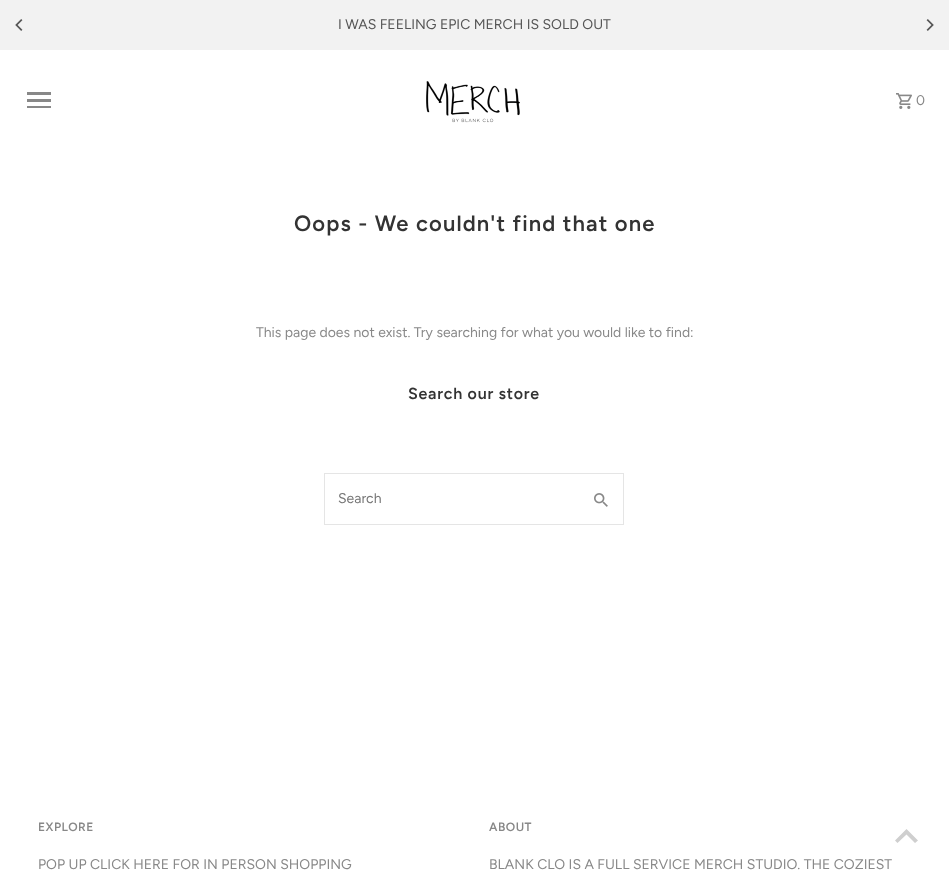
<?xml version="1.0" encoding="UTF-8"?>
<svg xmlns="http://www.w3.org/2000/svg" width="949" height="888">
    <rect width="100%" height="100%" fill="#FFFFFF"/>
    <rect x="0" y="0" width="949" height="50" fill="#F2F2F2"/>
    <image x="15" y="19" width="8" height="12" href="img_01.png"/>
    <text x="338" y="29" font-family="Figtree" font-size="14" fill="#555555">I WAS FEELING EPIC MERCH IS SOLD OUT</text>
    <image x="926" y="19" width="8" height="12" href="img_02.png"/>
    <rect x="27" y="106" width="24" height="2" fill="#888888"/>
    <rect x="27" y="99" width="24" height="3" fill="#888888"/>
    <rect x="27" y="92" width="24" height="3" fill="#888888"/>
    <image x="426" y="81" width="94" height="42" href="img_03.png"/>
    <image x="896" y="93" width="16" height="16" href="img_04.png"/>
    <text x="916" y="105" font-family="Figtree" font-size="14" fill="#888888">0</text>
    <text x="294" y="231" font-family="Figtree" font-size="22" font-weight="600" letter-spacing="1.1" fill="#333333">Oops - We couldn't find that one</text>
    <text x="256" y="337" font-family="Figtree" font-size="14" fill="#888888">This page does not exist. Try searching for what you would like to find:</text>
    <text x="408" y="399" font-family="Figtree" font-size="16" font-weight="600" letter-spacing="0.75" fill="#333333">Search our store</text>
    <rect x="324.5" y="473.5" width="299" height="51" fill="none" stroke="#E5E5E5"/>
    <text x="338" y="503" font-family="Figtree" font-size="14" fill="#757575">Search</text>
    <image x="594" y="493" width="14" height="14" href="img_05.png"/>
    <text x="38" y="831" font-family="Figtree" font-size="12" font-weight="600" letter-spacing="0.5" fill="#888888">EXPLORE</text>
    <text x="38" y="869" font-family="Figtree" font-size="14" fill="#888888">POP UP CLICK HERE FOR IN PERSON SHOPPING</text>
    <text x="489" y="831" font-family="Figtree" font-size="12" font-weight="600" letter-spacing="0.5" fill="#888888">ABOUT</text>
    <text x="489" y="869" font-family="Figtree" font-size="14" fill="#888888">BLANK CLO IS A FULL SERVICE MERCH STUDIO. THE COZIEST</text>
    <path d="M 906.5 829 L 895 840.5 L 897.5 843 L 906.5 834.5 L 915 843 L 918 840.5 Z" fill="#CFCFCF"/>
</svg>
